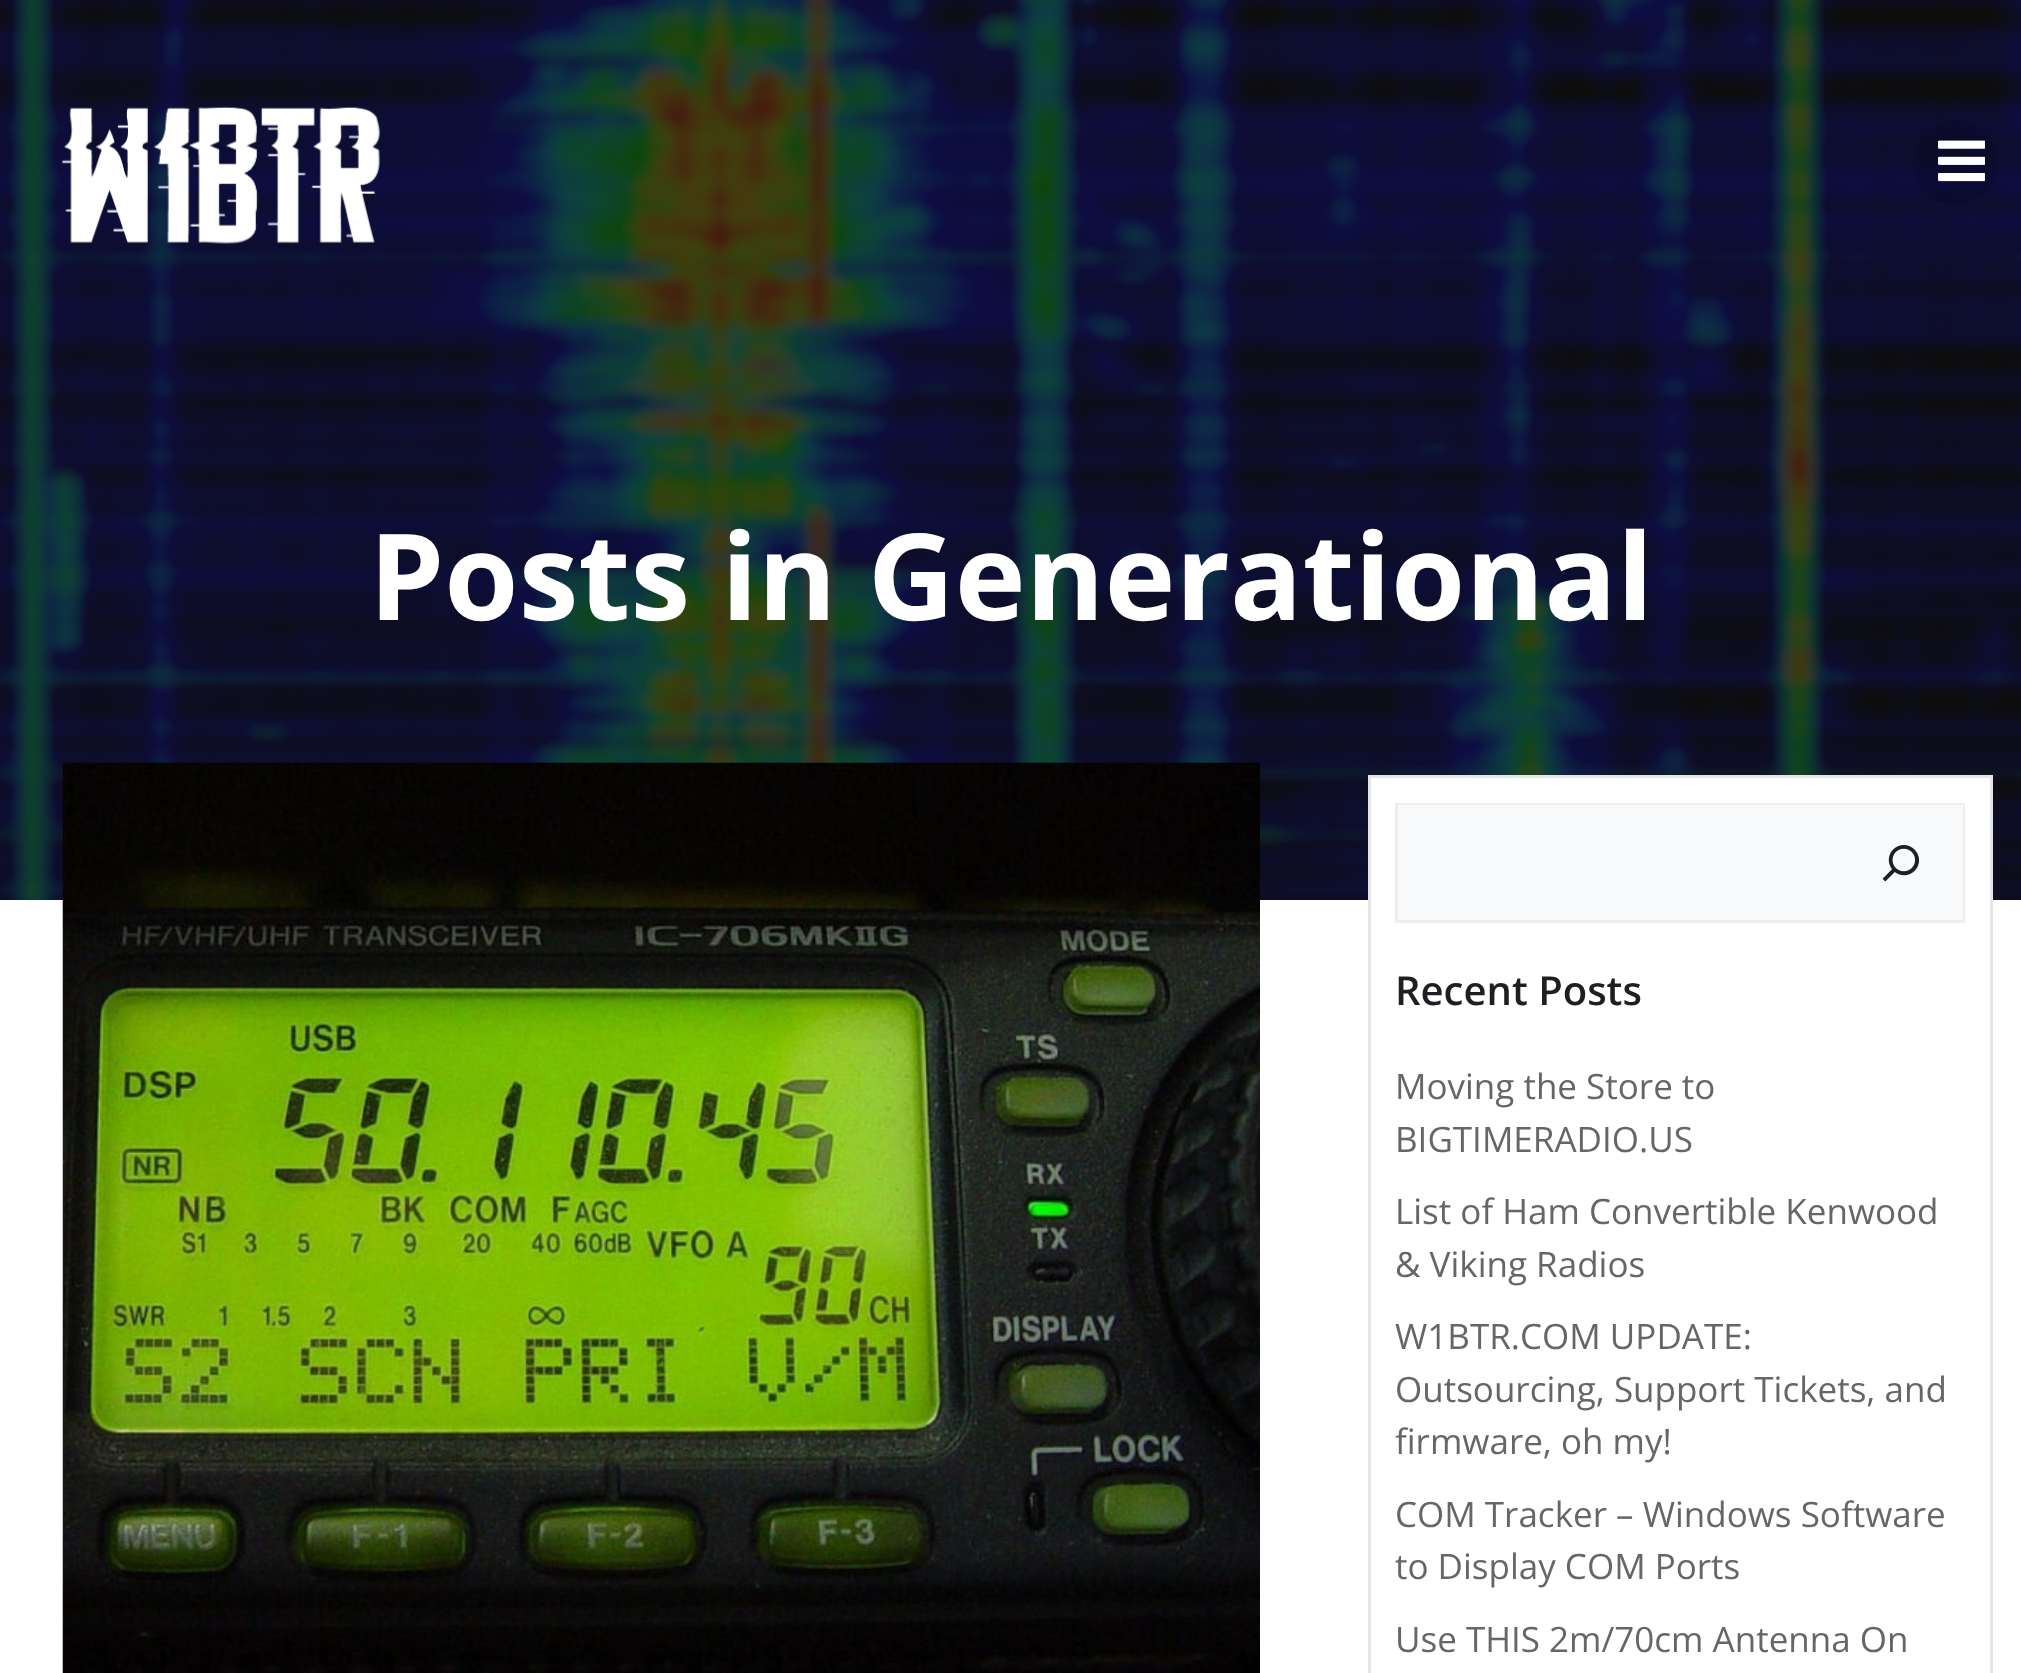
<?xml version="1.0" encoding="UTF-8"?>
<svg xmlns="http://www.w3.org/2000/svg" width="2021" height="1673">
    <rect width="100%" height="100%" fill="#FFFFFF"/>
    <image x="0" y="0" width="2021" height="900" href="img_03.png"/>
    <image x="62" y="106" width="318" height="138" href="img_01.png"/>
    <circle cx="1955.5" cy="162.5" r="42.5" fill="#000000" fill-opacity="0.1"/>
    <image x="1938" y="140" width="47" height="42" href="img_02.png"/>
    <text x="369" y="620" font-family="Open Sans" font-size="120" font-weight="700" fill="#FFFFFF">Posts in Generational</text>
    <image x="62" y="762" width="1198" height="911" href="img_04.png"/>
    <rect x="1371" y="778" width="619" height="122" fill="#FFFFFF"/>
    <rect x="1369.5" y="776.5" width="622" height="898" fill="none" stroke="#E6E6E6" stroke-width="3"/>
    <rect x="1396.5" y="804.5" width="567" height="117" fill="none" stroke="#EEEEEE" stroke-width="3"/>
    <rect x="1398" y="805" width="565" height="115" fill="#F9FAFB"/>
    <image x="1882" y="845" width="38" height="37" href="img_05.png"/>
    <text x="1395" y="1005" font-family="Open Sans" font-size="40" font-weight="600" fill="#1E1F22">Recent Posts</text>
    <text font-family="Open Sans" font-size="35" fill="#666666">
        <tspan x="1395" y="1099">Moving the Store to</tspan>
        <tspan x="1395" y="1152">BIGTIMERADIO.US</tspan>
    </text>
    <text font-family="Open Sans" font-size="35" fill="#666666">
        <tspan x="1395" y="1224">List of Ham Convertible Kenwood</tspan>
        <tspan x="1395" y="1277">&amp; Viking Radios</tspan>
    </text>
    <text font-family="Open Sans" font-size="35" fill="#666666">
        <tspan x="1395" y="1349">W1BTR.COM UPDATE:</tspan>
        <tspan x="1395" y="1402">Outsourcing, Support Tickets, and</tspan>
        <tspan x="1395" y="1454">firmware, oh my!</tspan>
    </text>
    <text font-family="Open Sans" font-size="35" fill="#666666">
        <tspan x="1395" y="1527">COM Tracker – Windows Software</tspan>
        <tspan x="1395" y="1579">to Display COM Ports</tspan>
    </text>
    <text x="1395" y="1652" font-family="Open Sans" font-size="35" fill="#666666">Use THIS 2m/70cm Antenna On</text>
</svg>
